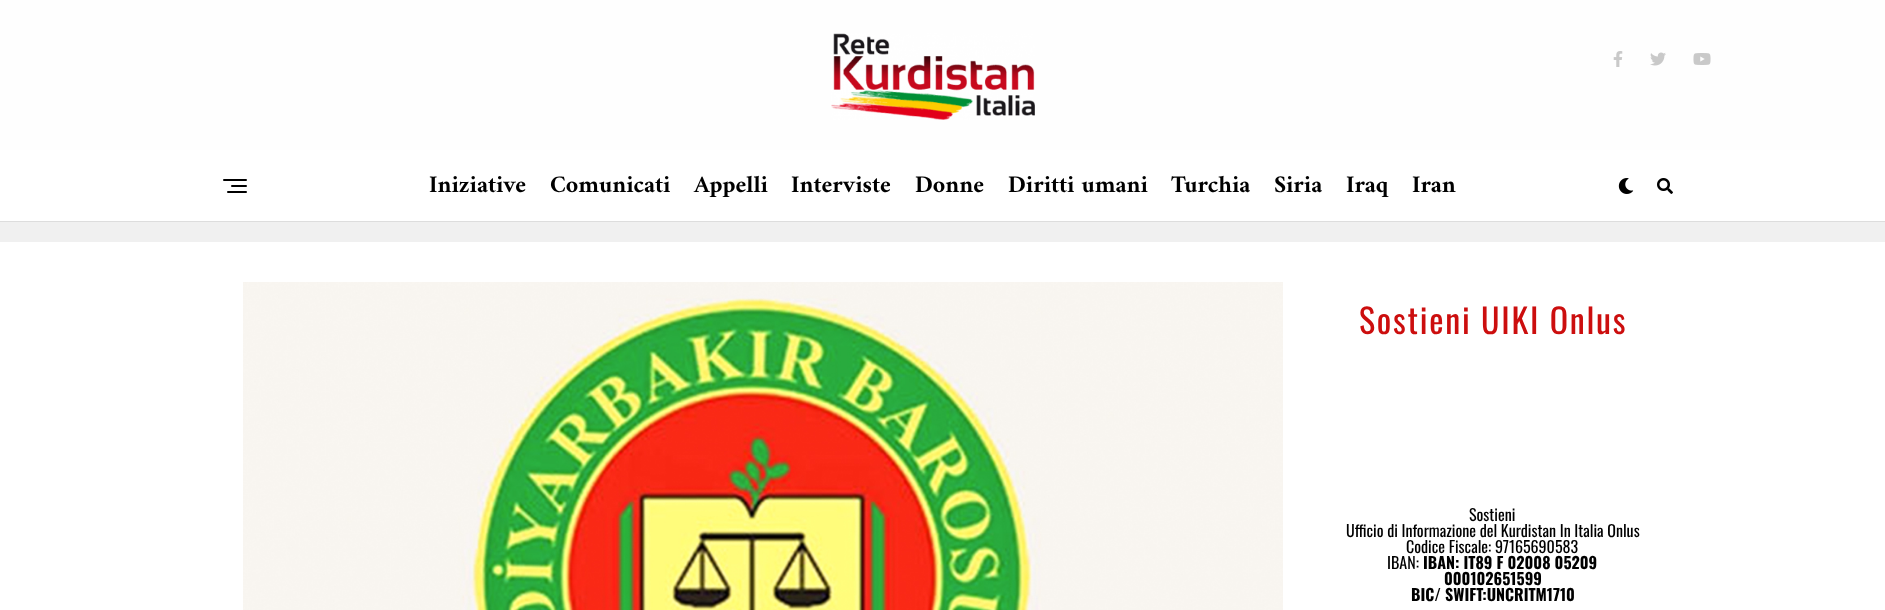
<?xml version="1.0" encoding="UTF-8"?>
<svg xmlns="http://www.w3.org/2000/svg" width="1885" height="610">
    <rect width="100%" height="100%" fill="#F0F0F0"/>
    <rect x="0" y="0" width="1885" height="150" fill="#FEFEFE"/>
    <image x="831" y="33" width="204" height="87" href="img_01.png"/>
    <image x="1613" y="51" width="10" height="16" href="img_02.png"/>
    <image x="1650" y="52" width="16" height="14" href="img_03.png"/>
    <image x="1693" y="53" width="18" height="12" href="img_04.png"/>
    <rect x="0" y="150" width="1885" height="71" fill="#FFFFFF"/>
    <rect x="0" y="221" width="1885" height="1" fill="#DDDDDD"/>
    <rect x="223" y="179" width="24" height="2" rx="1" fill="#000000"/>
    <rect x="231" y="185" width="16" height="2" rx="1" fill="#000000"/>
    <rect x="227" y="191" width="20" height="2" rx="1" fill="#000000"/>
    <text x="429" y="192" font-family="Amiri" font-size="24" font-weight="700" fill="#000000">Iniziative</text>
    <text x="550" y="192" font-family="Amiri" font-size="24" font-weight="700" fill="#000000">Comunicati</text>
    <text x="694" y="192" font-family="Amiri" font-size="24" font-weight="700" fill="#000000">Appelli</text>
    <text x="791" y="192" font-family="Amiri" font-size="24" font-weight="700" fill="#000000">Interviste</text>
    <text x="915" y="192" font-family="Amiri" font-size="24" font-weight="700" fill="#000000">Donne</text>
    <text x="1008" y="192" font-family="Amiri" font-size="24" font-weight="700" fill="#000000">Diritti umani</text>
    <text x="1171" y="192" font-family="Amiri" font-size="24" font-weight="700" fill="#000000">Turchia</text>
    <text x="1274" y="192" font-family="Amiri" font-size="24" font-weight="700" fill="#000000">Siria</text>
    <text x="1346" y="192" font-family="Amiri" font-size="24" font-weight="700" fill="#000000">Iraq</text>
    <text x="1412" y="192" font-family="Amiri" font-size="24" font-weight="700" fill="#000000">Iran</text>
    <image x="1618" y="178" width="16" height="16" href="img_05.png"/>
    <image x="1657" y="178" width="16" height="16" href="img_06.png"/>
    <rect x="0" y="242" width="1885" height="368" fill="#FFFFFF"/>
    <image x="243" y="282" width="1040" height="328" href="img_07.png"/>
    <text x="1359" y="334" font-family="Oswald" font-size="34" letter-spacing="1.75" fill="#CC0E0E">Sostieni UIKI Onlus</text>
    <text x="1469" y="521" font-family="Oswald" font-size="16" fill="#000000">Sostieni</text>
    <text x="1346" y="537" font-family="Oswald" font-size="16" fill="#000000">Ufficio di Informazione del Kurdistan In Italia Onlus</text>
    <text x="1406" y="553" font-family="Oswald" font-size="16" fill="#000000">Codice Fiscale: 97165690583</text>
    <text x="1387" y="569" font-family="Oswald" font-size="16" fill="#000000">IBAN:</text>
    <text x="1423" y="569" font-family="Oswald" font-size="16" font-weight="700" fill="#000000">IBAN: IT89 F 02008 05209</text>
    <text x="1444" y="585" font-family="Oswald" font-size="16" font-weight="700" fill="#000000">000102651599</text>
    <text x="1411" y="601" font-family="Oswald" font-size="16" font-weight="700" fill="#000000">BIC/ SWIFT:UNCRITM1710</text>
</svg>
